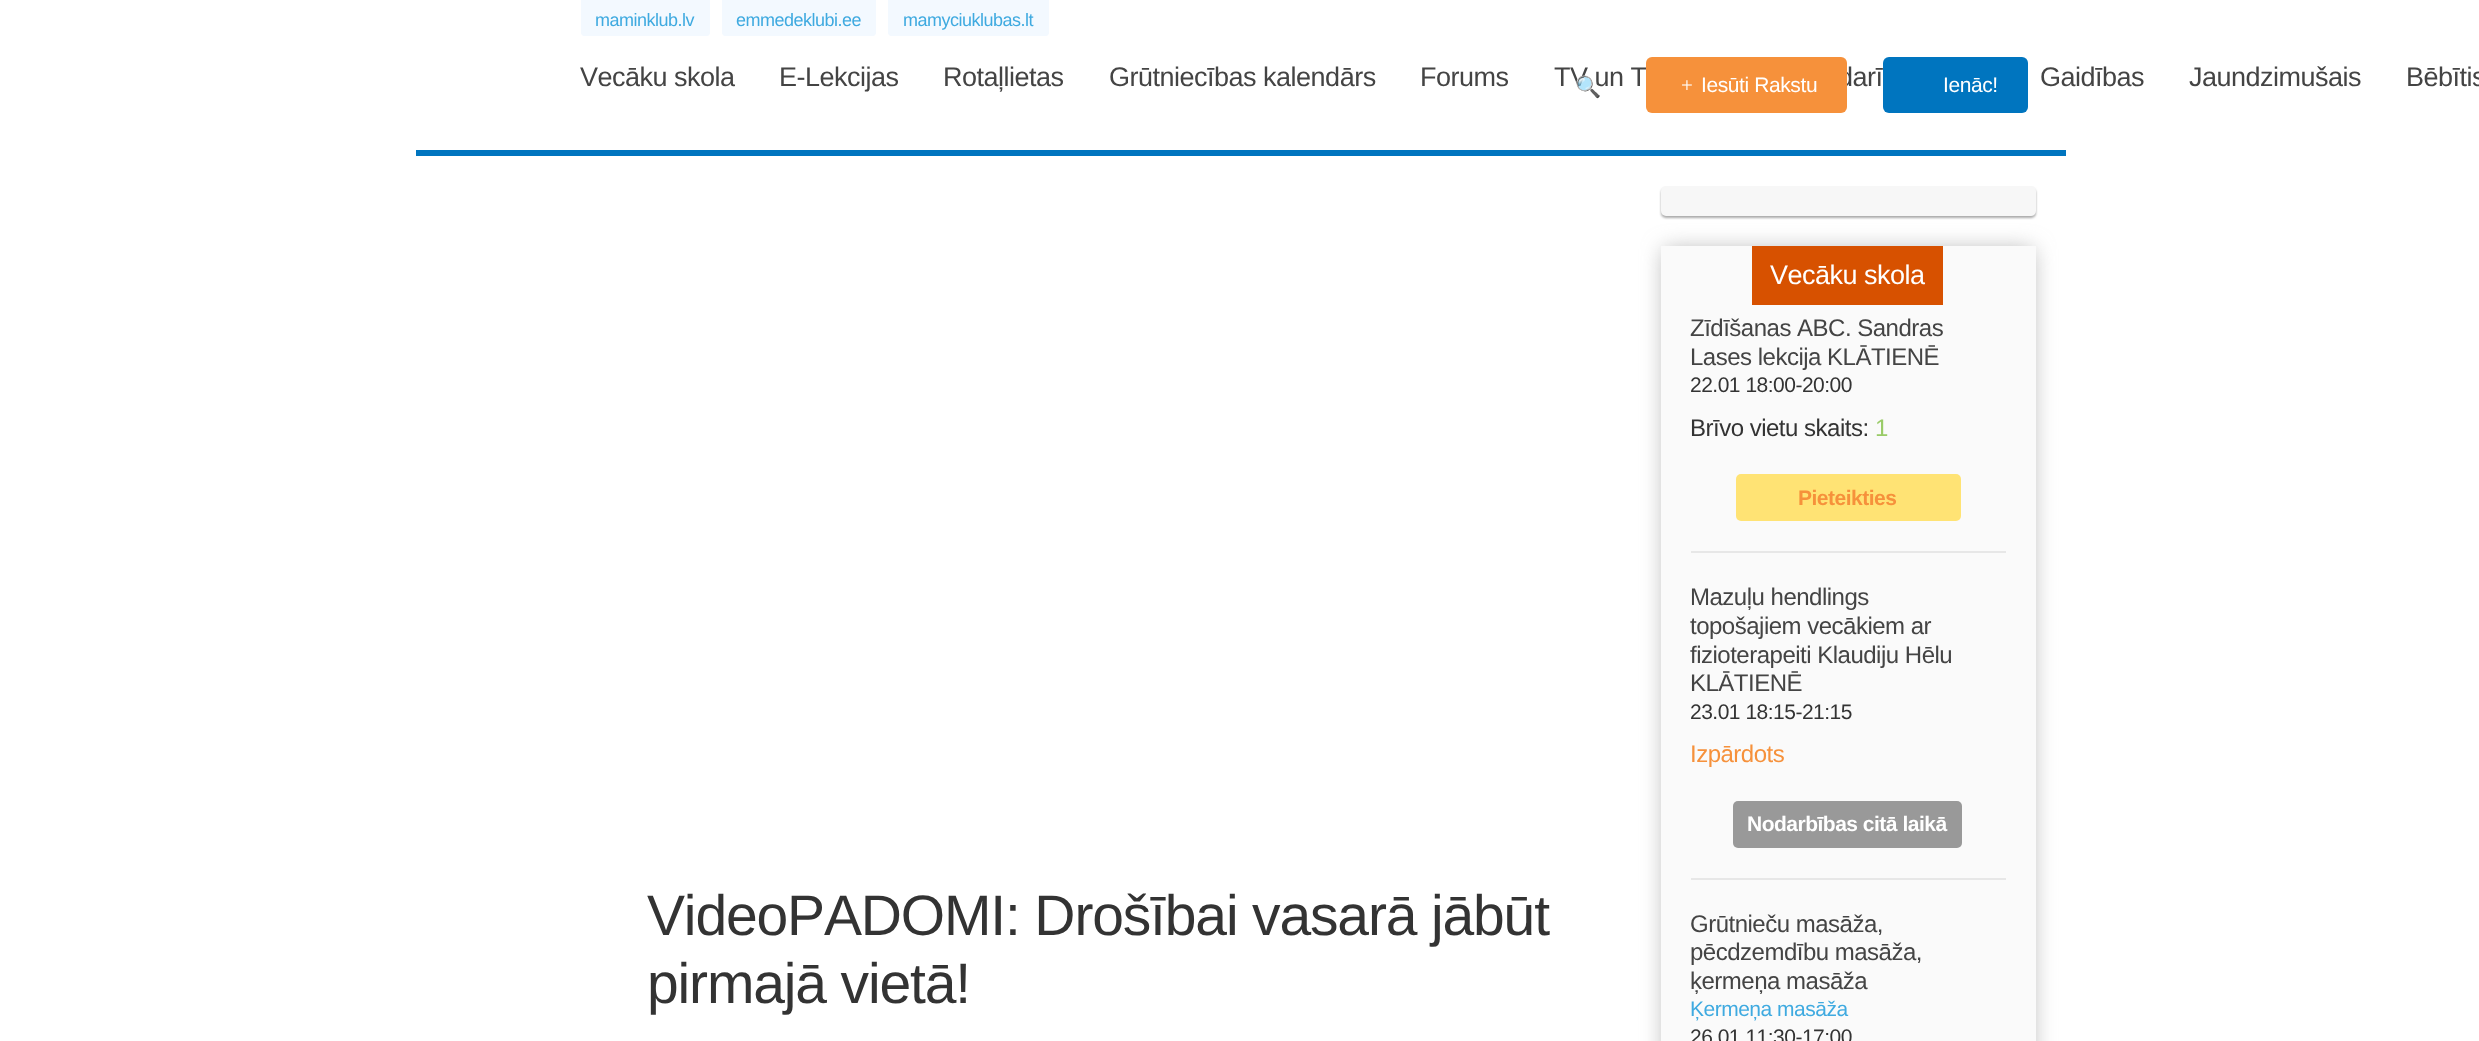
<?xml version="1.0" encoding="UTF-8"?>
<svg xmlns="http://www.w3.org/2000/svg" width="2479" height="1041">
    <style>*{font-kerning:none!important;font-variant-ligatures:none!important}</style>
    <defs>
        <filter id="blur1" x="-50%" y="-200%" width="200%" height="500%"><feGaussianBlur stdDeviation="1"/></filter>
        <filter id="blur2" x="-50%" y="-200%" width="200%" height="500%"><feGaussianBlur stdDeviation="11"/></filter>
    </defs>
    <rect width="100%" height="100%" fill="#FFFFFF"/>
    <rect x="416" y="150" width="1650" height="6" fill="#0075BF"/>
    <path d="M 581 0 H 710 V 33 C 710 34.5 708.5 36 707 36 H 584 C 582.5 36 581 34.5 581 33 Z" fill="#F3F9FF"/>
    <text x="595" y="26" font-family="Liberation Sans" font-size="18" letter-spacing="-0.5" fill="#3FAAE0">maminklub.lv</text>
    <path d="M 722 0 H 876 V 33 C 876 34.5 874.5 36 873 36 H 725 C 723.5 36 722 34.5 722 33 Z" fill="#F3F9FF"/>
    <text x="736" y="26" font-family="Liberation Sans" font-size="18" letter-spacing="-0.5" fill="#3FAAE0">emmedeklubi.ee</text>
    <path d="M 888 0 H 1049 V 33 C 1049 34.5 1047.5 36 1046 36 H 891 C 889.5 36 888 34.5 888 33 Z" fill="#F3F9FF"/>
    <text x="903" y="26" font-family="Liberation Sans" font-size="18" letter-spacing="-0.5" fill="#3FAAE0">mamyciuklubas.lt</text>
    <text x="580" y="86" font-family="Liberation Sans" font-size="27" letter-spacing="-0.5" fill="#444444">Vecāku skola</text>
    <text x="779" y="86" font-family="Liberation Sans" font-size="27" letter-spacing="-0.5" fill="#444444">E-Lekcijas</text>
    <text x="943" y="86" font-family="Liberation Sans" font-size="27" letter-spacing="-0.5" fill="#444444">Rotaļlietas</text>
    <text x="1109" y="86" font-family="Liberation Sans" font-size="27" letter-spacing="-0.5" fill="#444444">Grūtniecības kalendārs</text>
    <text x="1420" y="86" font-family="Liberation Sans" font-size="27" letter-spacing="-0.5" fill="#444444">Forums</text>
    <text x="1554" y="86" font-family="Liberation Sans" font-size="27" letter-spacing="-0.5" fill="#444444">TV un T</text>
    <text x="1838" y="86" font-family="Liberation Sans" font-size="27" letter-spacing="-0.5" fill="#444444">darī</text>
    <text x="2040" y="86" font-family="Liberation Sans" font-size="27" letter-spacing="-0.5" fill="#444444">Gaidības</text>
    <text x="2189" y="86" font-family="Liberation Sans" font-size="27" letter-spacing="-0.5" fill="#444444">Jaundzimušais</text>
    <text x="2406" y="86" font-family="Liberation Sans" font-size="27" letter-spacing="-0.5" fill="#444444">Bēbītis</text>
    <text x="1575" y="94" font-family="Noto Color Emoji" font-size="21" letter-spacing="-0.4" fill="#444444">🔍</text>
    <rect x="1646" y="57" width="201" height="56" rx="6" fill="#F6913B"/>
    <text x="1681" y="92" font-family="Liberation Serif" font-size="21" letter-spacing="-0.4" fill="#FFFFFF">+</text>
    <text x="1701" y="92" font-family="Liberation Sans" font-size="21" letter-spacing="-0.4" fill="#FFFFFF">Iesūti Rakstu</text>
    <rect x="1883" y="57" width="145" height="56" rx="6" fill="#0075BF"/>
    <text x="1943" y="92" font-family="Liberation Sans" font-size="21" letter-spacing="-0.4" fill="#FFFFFF">Ienāc!</text>
    <text font-family="Liberation Sans" font-size="57" letter-spacing="-1.15" fill="#333333">
        <tspan x="647" y="935">VideoPADOMI: Drošībai vasarā jābūt</tspan>
        <tspan x="647" y="1003">pirmajā vietā!</tspan>
    </text>
    <rect x="1661" y="188" width="375" height="30" rx="5" fill="#AAAAAA" filter="url(#blur1)"/>
    <rect x="1661" y="186" width="375" height="30" rx="5" fill="#F7F7F7"/>
    <rect x="1664" y="249" width="369" height="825" fill="#ABABAB" fill-opacity="0.89" filter="url(#blur2)"/>
    <rect x="1661" y="246" width="375" height="795" fill="#FAFAFA"/>
    <rect x="1752" y="246" width="191" height="59" fill="#D75100"/>
    <text x="1770" y="284" font-family="Liberation Sans" font-size="27" letter-spacing="-0.5" fill="#FFFFFF">Vecāku skola</text>
    <rect x="1691" y="551" width="315" height="2" fill="#E7E7E7"/>
    <text font-family="Liberation Sans" font-size="24" letter-spacing="-0.5" fill="#444444">
        <tspan x="1690" y="336">Zīdīšanas ABC. Sandras</tspan>
        <tspan x="1690" y="365">Lases lekcija KLĀTIENĒ</tspan>
    </text>
    <text x="1690" y="392" font-family="Liberation Sans" font-size="21" letter-spacing="-0.5" fill="#333333">22.01 18:00-20:00</text>
    <text x="1690" y="436" font-family="Liberation Sans" font-size="24" letter-spacing="-0.5" fill="#333333">Brīvo vietu skaits:</text>
    <text x="1875" y="436" font-family="Liberation Sans" font-size="24" letter-spacing="-0.5" fill="#99CB67">1</text>
    <rect x="1736" y="474" width="225" height="47" rx="5" fill="#FFE374"/>
    <text x="1798" y="505" font-family="Liberation Sans" font-size="21" font-weight="700" letter-spacing="-0.5" fill="#F6913B">Pieteikties</text>
    <rect x="1691" y="878" width="315" height="2" fill="#E7E7E7"/>
    <text font-family="Liberation Sans" font-size="24" letter-spacing="-0.5" fill="#444444">
        <tspan x="1690" y="605">Mazuļu hendlings</tspan>
        <tspan x="1690" y="634">topošajiem vecākiem ar</tspan>
        <tspan x="1690" y="663">fizioterapeiti Klaudiju Hēlu</tspan>
        <tspan x="1690" y="691">KLĀTIENĒ</tspan>
    </text>
    <text x="1690" y="719" font-family="Liberation Sans" font-size="21" letter-spacing="-0.5" fill="#333333">23.01 18:15-21:15</text>
    <text x="1690" y="762" font-family="Liberation Sans" font-size="24" letter-spacing="-0.5" fill="#F6913B">Izpārdots</text>
    <rect x="1733" y="801" width="229" height="47" rx="5" fill="#999999"/>
    <text x="1747" y="831" font-family="Liberation Sans" font-size="21" font-weight="700" letter-spacing="-0.5" fill="#FFFFFF">Nodarbības citā laikā</text>
    <text font-family="Liberation Sans" font-size="24" letter-spacing="-0.5" fill="#444444">
        <tspan x="1690" y="932">Grūtnieču masāža,</tspan>
        <tspan x="1690" y="960">pēcdzemdību masāža,</tspan>
        <tspan x="1690" y="989">ķermeņa masāža</tspan>
    </text>
    <text x="1690" y="1016" font-family="Liberation Sans" font-size="21" letter-spacing="-0.5" fill="#3FAAE0">Ķermeņa masāža</text>
    <text x="1690" y="1044" font-family="Liberation Sans" font-size="21" letter-spacing="-0.5" fill="#333333">26.01 11:30-17:00</text>
</svg>
